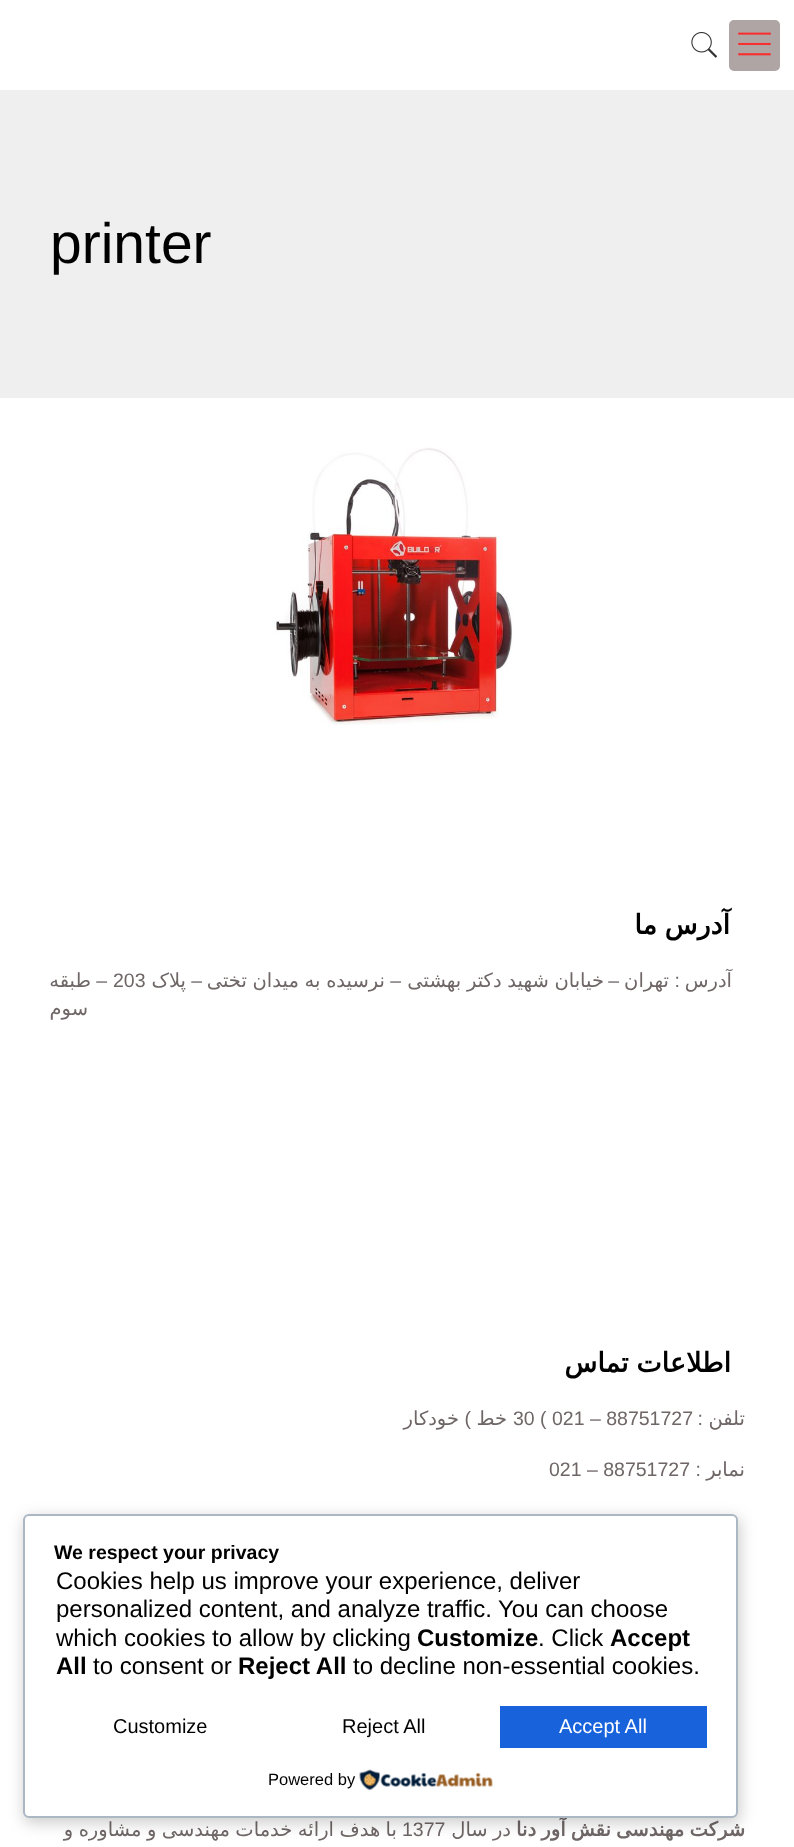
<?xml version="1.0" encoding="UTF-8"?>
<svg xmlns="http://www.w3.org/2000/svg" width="794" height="1847">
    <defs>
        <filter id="blur1" x="-50%" y="-200%" width="200%" height="500%"><feGaussianBlur stdDeviation="7.5"/></filter>
    </defs>
    <rect width="100%" height="100%" fill="#FFFFFF"/>
    <rect x="0" y="90" width="794" height="308" fill="#F0EFEF"/>
    <image x="691" y="32" width="27" height="26" href="img_01.png"/>
    <rect x="729" y="20" width="51" height="51" rx="5" fill="#AFA5A5"/>
    <image x="738" y="32" width="33" height="24" href="img_02.png"/>
    <text x="50" y="263" font-family="Liberation Sans" font-size="57" fill="#000000">printer</text>
    <image x="274" y="447" width="239" height="278" href="img_03.png"/>
    <text x="730" y="934" word-spacing="-1" font-family="DejaVu Sans" font-size="27" font-weight="700" direction="rtl" fill="#000000">آدرس ما</text>
    <text x="91" y="987" font-family="DejaVu Sans" font-size="19.5" direction="rtl" fill="#6F6666">طبقه</text>
    <text x="107" y="987" font-family="Liberation Sans" font-size="19.5" direction="rtl" fill="#6F6666">–</text>
    <text x="113" y="987" font-family="Liberation Sans" font-size="19.5" fill="#6F6666">203</text>
    <text x="186" y="987" font-family="DejaVu Sans" font-size="19.5" direction="rtl" fill="#6F6666">پلاک</text>
    <text x="202" y="987" font-family="Liberation Sans" font-size="19.5" direction="rtl" fill="#6F6666">–</text>
    <text x="385" y="987" word-spacing="-0.5" font-family="DejaVu Sans" font-size="19.5" direction="rtl" fill="#6F6666">نرسیده به میدان تختی</text>
    <text x="401" y="987" font-family="Liberation Sans" font-size="19.5" direction="rtl" fill="#6F6666">–</text>
    <text x="604" y="987" word-spacing="-0.5" font-family="DejaVu Sans" font-size="19.5" direction="rtl" fill="#6F6666">خیابان شهید دکتر بهشتی</text>
    <text x="619" y="987" font-family="Liberation Sans" font-size="19.5" direction="rtl" fill="#6F6666">–</text>
    <text x="669" y="987" font-family="DejaVu Sans" font-size="19.5" direction="rtl" fill="#6F6666">تهران</text>
    <text x="680" y="987" font-family="Liberation Sans" font-size="19.5" direction="rtl" fill="#6F6666">:</text>
    <text x="732" y="987" font-family="DejaVu Sans" font-size="19.5" direction="rtl" fill="#6F6666">آدرس</text>
    <text x="88" y="1015" font-family="DejaVu Sans" font-size="19.5" direction="rtl" fill="#6F6666">سوم</text>
    <text x="731" y="1372" word-spacing="-1" font-family="DejaVu Sans" font-size="27" font-weight="700" direction="rtl" fill="#000000">اطلاعات تماس</text>
    <text x="459" y="1425" font-family="DejaVu Sans" font-size="19.5" direction="rtl" fill="#6F6666">خودکار</text>
    <text x="471" y="1425" font-family="Liberation Sans" font-size="19.5" direction="rtl" fill="#6F6666">)</text>
    <text x="507" y="1425" font-family="DejaVu Sans" font-size="19.5" direction="rtl" fill="#6F6666">خط</text>
    <text x="513" y="1425" font-family="Liberation Sans" font-size="19.5" fill="#6F6666">30 ( 021 – 88751727</text>
    <text x="703" y="1425" font-family="Liberation Sans" font-size="19.5" direction="rtl" fill="#6F6666">:</text>
    <text x="745" y="1425" font-family="DejaVu Sans" font-size="19.5" direction="rtl" fill="#6F6666">تلفن</text>
    <text x="549" y="1476" font-family="Liberation Sans" font-size="19.5" fill="#6F6666">021 – 88751727</text>
    <text x="701" y="1476" font-family="Liberation Sans" font-size="19.5" direction="rtl" fill="#6F6666">:</text>
    <text x="745" y="1476" font-family="DejaVu Sans" font-size="19.5" direction="rtl" fill="#6F6666">نمابر</text>
    <text x="397" y="1836" word-spacing="-0.75" font-family="DejaVu Sans" font-size="19.5" direction="rtl" fill="#6F6666">با هدف ارائه خدمات مهندسی و مشاوره و</text>
    <text x="402" y="1836" font-family="Liberation Sans" font-size="19.5" fill="#6F6666">1377</text>
    <text x="511" y="1836" word-spacing="-1" font-family="DejaVu Sans" font-size="19.5" direction="rtl" fill="#6F6666">در سال</text>
    <text x="745" y="1836" word-spacing="-1" font-family="DejaVu Sans" font-size="19.5" font-weight="700" direction="rtl" fill="#6F6666">شرکت مهندسی نقش آور دنا</text>
    <rect x="24" y="1518" width="716" height="305" rx="6" fill="#000000" fill-opacity="0.2" filter="url(#blur1)"/>
    <rect x="24" y="1515" width="713" height="302" rx="5" fill="#FFFFFF" stroke="#ABB8C3" stroke-width="2"/>
    <text x="54" y="1559" font-family="Liberation Sans" font-size="19.5" font-weight="700" fill="#000000">We respect your privacy</text>
    <text font-family="Liberation Sans" font-size="24" fill="#000000">
        <tspan x="56" y="1589">Cookies help us improve your experience, deliver</tspan>
        <tspan x="56" y="1617">personalized content, and analyze traffic. You can choose</tspan>
        <tspan x="56" y="1646">which cookies to allow by clicking</tspan>
    </text>
    <text x="417" y="1646" font-family="Liberation Sans" font-size="24" font-weight="700" fill="#000000">Customize</text>
    <text x="538" y="1646" font-family="Liberation Sans" font-size="24" fill="#000000">. Click</text>
    <text x="610" y="1646" font-family="Liberation Sans" font-size="24" font-weight="700" fill="#000000">Accept</text>
    <text x="56" y="1674" font-family="Liberation Sans" font-size="24" font-weight="700" fill="#000000">All</text>
    <text x="93" y="1674" font-family="Liberation Sans" font-size="24" fill="#000000">to consent or</text>
    <text x="238" y="1674" font-family="Liberation Sans" font-size="24" font-weight="700" fill="#000000">Reject All</text>
    <text x="353" y="1674" font-family="Liberation Sans" font-size="24" fill="#000000">to decline non-essential cookies.</text>
    <text x="113" y="1733" font-family="Liberation Sans" font-size="20" fill="#000000">Customize</text>
    <text x="342" y="1733" font-family="Liberation Sans" font-size="20" fill="#000000">Reject All</text>
    <rect x="500" y="1706" width="207" height="42" fill="#1863DC"/>
    <text x="559" y="1733" font-family="Liberation Sans" font-size="20" fill="#FFFFFF">Accept All</text>
    <text x="268" y="1785" font-family="Liberation Sans" font-size="16.5" fill="#000000">Powered by</text>
    <image x="359" y="1769" width="134" height="22" href="img_04.png"/>
</svg>
